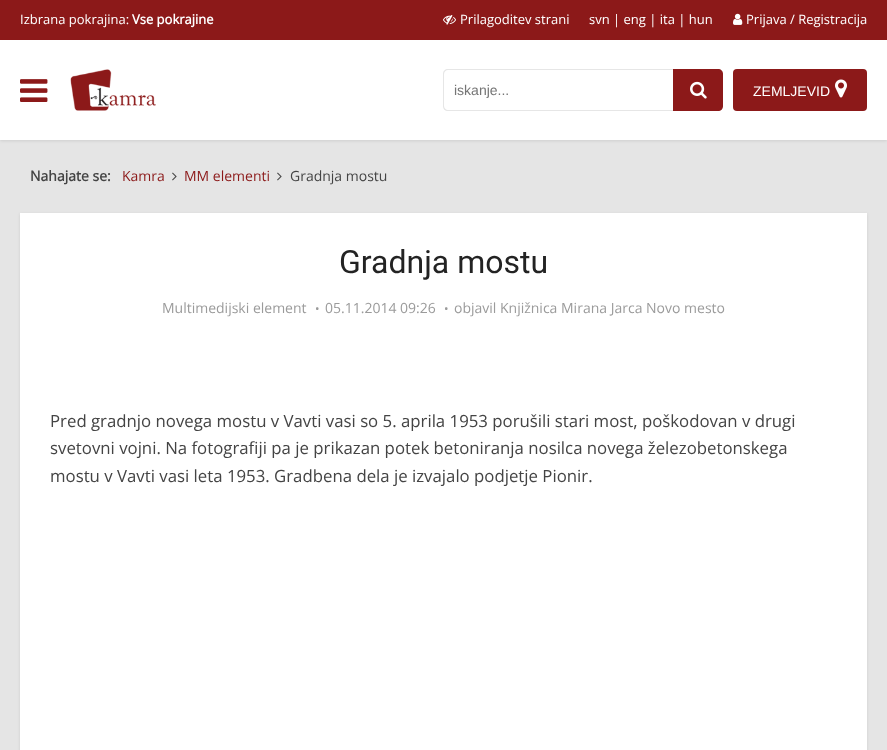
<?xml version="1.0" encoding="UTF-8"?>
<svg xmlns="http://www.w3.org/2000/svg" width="887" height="750">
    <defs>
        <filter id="blur1" x="-50%" y="-200%" width="200%" height="500%"><feGaussianBlur stdDeviation="1.5"/></filter>
    </defs>
    <rect width="100%" height="100%" fill="#E5E5E5"/>
    <rect x="0" y="1" width="887" height="140" fill="#000000" fill-opacity="0.1" filter="url(#blur1)"/>
    <rect x="0" y="40" width="887" height="100" fill="#FFFFFF"/>
    <rect x="0" y="0" width="887" height="40" fill="#8C1919"/>
    <text x="20" y="24" font-family="Open Sans" font-size="13" fill="#FFFFFF">Izbrana pokrajina:</text>
    <text x="132" y="24" font-family="Open Sans" font-size="13" font-weight="700" fill="#FFFFFF">Vse pokrajine</text>
    <image x="443" y="15" width="13" height="10" href="img_01.png"/>
    <text x="460" y="24" font-family="Open Sans" font-size="13" fill="#FFFFFF">Prilagoditev strani</text>
    <text x="589" y="24" font-family="Open Sans" font-size="13" fill="#FFFFFF">svn | eng | ita | hun</text>
    <image x="733" y="13" width="10" height="12" href="img_02.png"/>
    <text x="746" y="24" font-family="Open Sans" font-size="13" fill="#FFFFFF">Prijava / Registracija</text>
    <image x="20" y="79" width="28" height="23" href="img_03.png"/>
    <image x="70" y="69" width="86" height="42" href="img_04.png"/>
    <path d="M 448 69 H 673 V 111 H 448 C 445 111 443 109 443 106 V 74 C 443 71 445 69 448 69 Z M 448 70 H 673 V 110 H 448 C 446 110 444 108 444 106 V 74 C 444 72 446 70 448 70 Z" fill="#E6E6E6" fill-rule="evenodd"/>
    <text x="454" y="95" font-family="Liberation Sans" font-size="14" fill="#757575">iskanje...</text>
    <path d="M 673 69 H 718 C 721 69 723 71 723 74 V 106 C 723 109 721 111 718 111 H 673 Z" fill="#8C1919"/>
    <image x="690" y="81" width="17" height="18" href="img_05.png"/>
    <rect x="733" y="69" width="134" height="42" rx="4" fill="#8C1919"/>
    <text x="753" y="96" font-family="Liberation Sans" font-size="14" fill="#FFFFFF">ZEMLJEVID</text>
    <image x="835" y="79" width="12" height="19" href="img_06.png"/>
    <text x="30" y="181" font-family="Open Sans" font-size="14" font-weight="700" fill="#444444">Nahajate se:</text>
    <text x="122" y="181" font-family="Open Sans" font-size="14" fill="#8C1919">Kamra</text>
    <image x="172" y="172" width="5" height="9" href="img_07.png"/>
    <text x="184" y="181" font-family="Open Sans" font-size="14" fill="#8C1919">MM elementi</text>
    <image x="277" y="172" width="5" height="9" href="img_07.png"/>
    <text x="290" y="181" font-family="Open Sans" font-size="14" fill="#444444">Gradnja mostu</text>
    <rect x="20" y="214" width="847" height="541" fill="#000000" fill-opacity="0.1" filter="url(#blur1)"/>
    <rect x="20" y="213" width="847" height="537" fill="#FFFFFF"/>
    <text x="339" y="273" font-family="Roboto" font-size="32" fill="#232323">Gradnja mostu</text>
    <text x="162" y="313" font-family="Open Sans" font-size="14" fill="#9B9B9B">Multimedijski element</text>
    <text x="315" y="313" font-family="Open Sans" font-size="12" fill="#9B9B9B">•</text>
    <text x="325" y="313" font-family="Open Sans" font-size="14" fill="#9B9B9B">05.11.2014 09:26</text>
    <text x="444" y="313" font-family="Open Sans" font-size="12" fill="#9B9B9B">•</text>
    <text x="454" y="313" font-family="Open Sans" font-size="14" fill="#9B9B9B">objavil Knjižnica Mirana Jarca Novo mesto</text>
    <text font-family="Open Sans" font-size="16.8" fill="#444444">
        <tspan x="50" y="427">Pred gradnjo novega mostu v Vavti vasi so 5. aprila 1953 porušili stari most, poškodovan v drugi</tspan>
        <tspan x="50" y="454">svetovni vojni. Na fotografiji pa je prikazan potek betoniranja nosilca novega železobetonskega</tspan>
        <tspan x="50" y="482">mostu v Vavti vasi leta 1953. Gradbena dela je izvajalo podjetje Pionir.</tspan>
    </text>
</svg>
